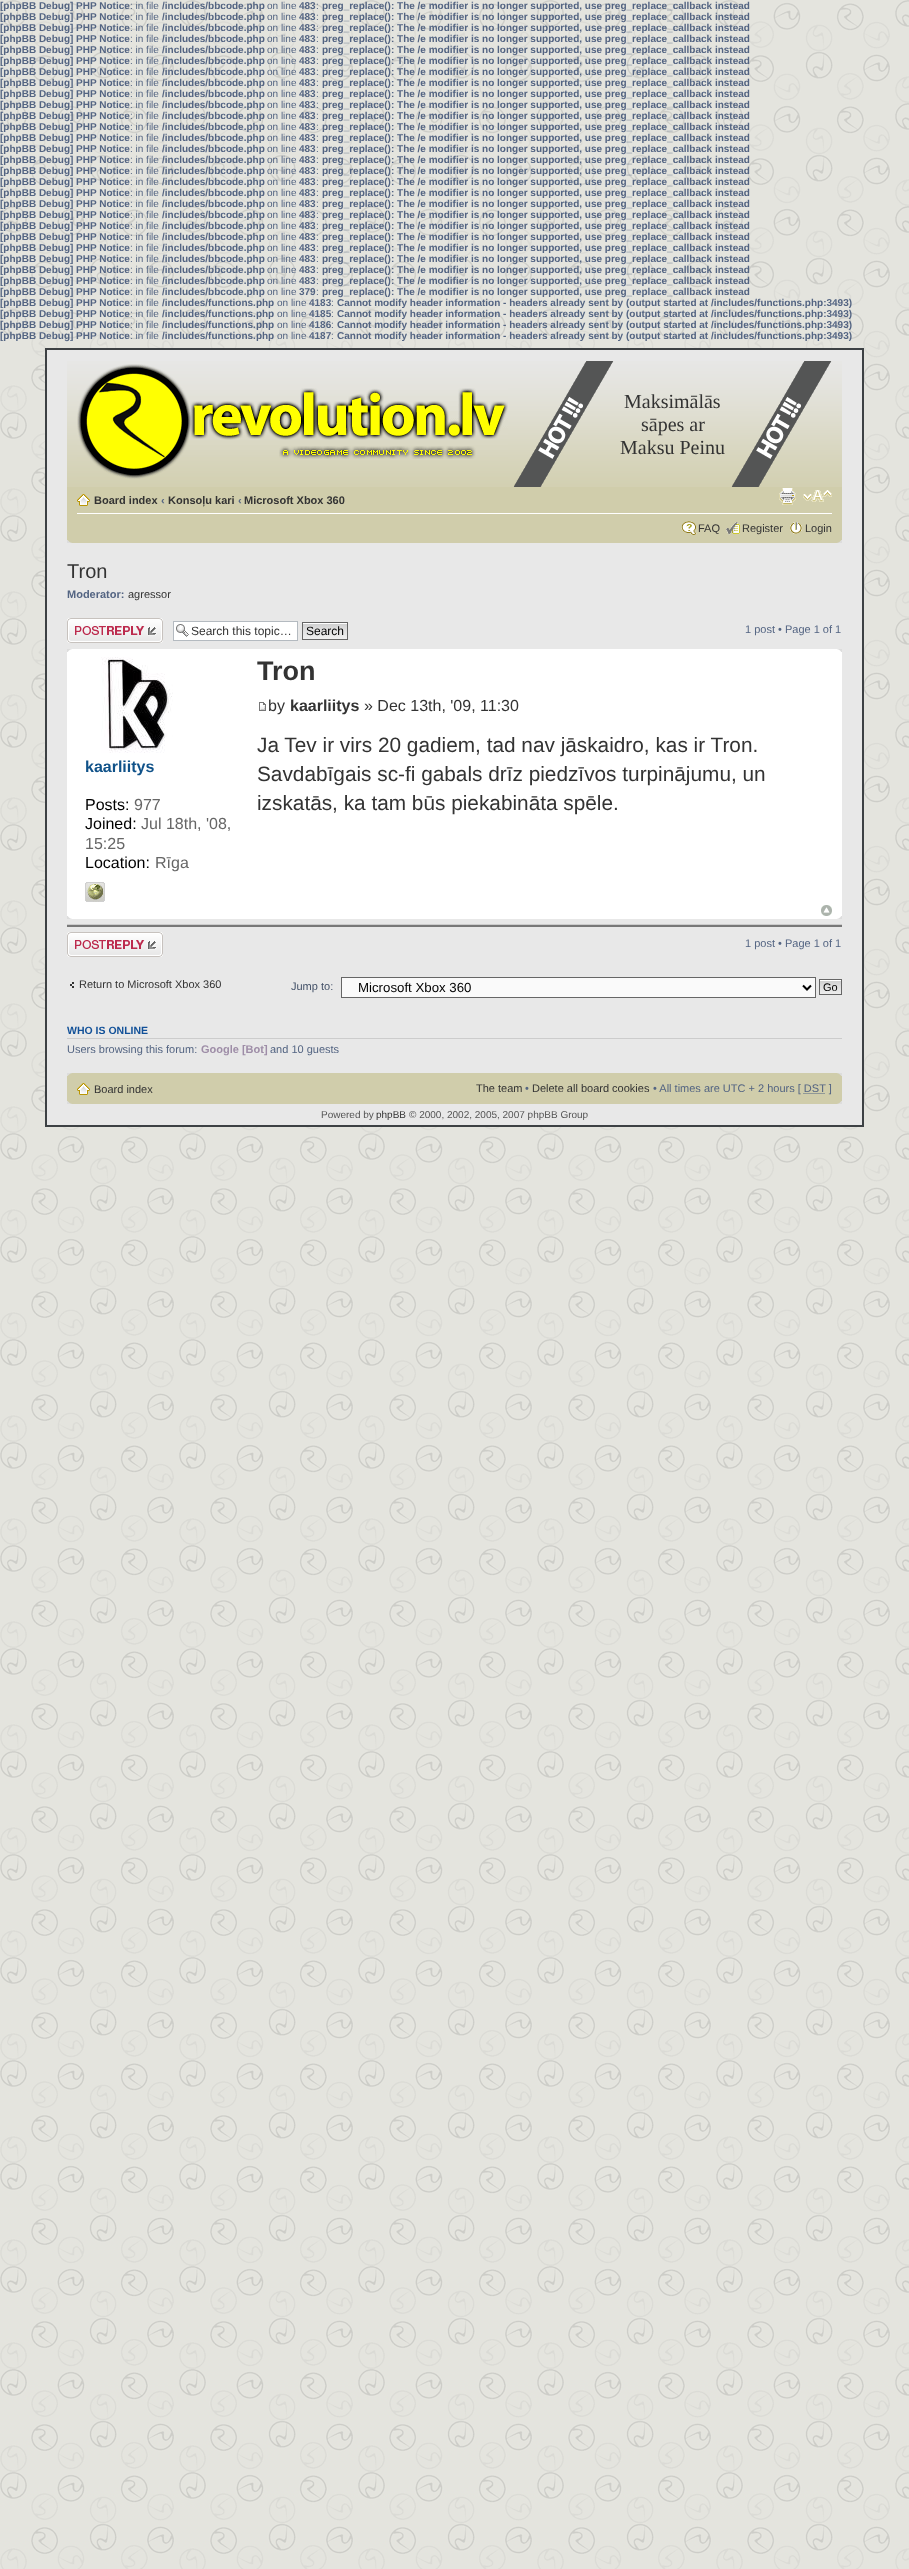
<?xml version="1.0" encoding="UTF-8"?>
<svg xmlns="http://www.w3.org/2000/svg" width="909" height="2569">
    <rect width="100%" height="100%" fill="#FFFFFF"/>
    <image x="0" y="0" width="909" height="2569" href="img_01.png"/>
    <text x="0" y="9" font-family="Liberation Sans" font-size="10" font-weight="700" fill="#536482">[phpBB Debug] PHP Notice</text>
    <text x="130" y="9" font-family="Liberation Sans" font-size="10" fill="#536482">: in file</text>
    <text x="162" y="9" font-family="Liberation Sans" font-size="10" font-weight="700" fill="#536482">/includes/bbcode.php</text>
    <text x="267" y="9" font-family="Liberation Sans" font-size="10" fill="#536482">on line</text>
    <text x="299" y="9" font-family="Liberation Sans" font-size="10" font-weight="700" fill="#536482">483</text>
    <text x="316" y="9" font-family="Liberation Sans" font-size="10" fill="#536482">:</text>
    <text x="322" y="9" font-family="Liberation Sans" font-size="10" font-weight="700" fill="#536482">preg_replace(): The /e modifier is no longer supported, use preg_replace_callback instead</text>
    <text x="0" y="20" font-family="Liberation Sans" font-size="10" font-weight="700" fill="#536482">[phpBB Debug] PHP Notice</text>
    <text x="130" y="20" font-family="Liberation Sans" font-size="10" fill="#536482">: in file</text>
    <text x="162" y="20" font-family="Liberation Sans" font-size="10" font-weight="700" fill="#536482">/includes/bbcode.php</text>
    <text x="267" y="20" font-family="Liberation Sans" font-size="10" fill="#536482">on line</text>
    <text x="299" y="20" font-family="Liberation Sans" font-size="10" font-weight="700" fill="#536482">483</text>
    <text x="316" y="20" font-family="Liberation Sans" font-size="10" fill="#536482">:</text>
    <text x="322" y="20" font-family="Liberation Sans" font-size="10" font-weight="700" fill="#536482">preg_replace(): The /e modifier is no longer supported, use preg_replace_callback instead</text>
    <text x="0" y="31" font-family="Liberation Sans" font-size="10" font-weight="700" fill="#536482">[phpBB Debug] PHP Notice</text>
    <text x="130" y="31" font-family="Liberation Sans" font-size="10" fill="#536482">: in file</text>
    <text x="162" y="31" font-family="Liberation Sans" font-size="10" font-weight="700" fill="#536482">/includes/bbcode.php</text>
    <text x="267" y="31" font-family="Liberation Sans" font-size="10" fill="#536482">on line</text>
    <text x="299" y="31" font-family="Liberation Sans" font-size="10" font-weight="700" fill="#536482">483</text>
    <text x="316" y="31" font-family="Liberation Sans" font-size="10" fill="#536482">:</text>
    <text x="322" y="31" font-family="Liberation Sans" font-size="10" font-weight="700" fill="#536482">preg_replace(): The /e modifier is no longer supported, use preg_replace_callback instead</text>
    <text x="0" y="42" font-family="Liberation Sans" font-size="10" font-weight="700" fill="#536482">[phpBB Debug] PHP Notice</text>
    <text x="130" y="42" font-family="Liberation Sans" font-size="10" fill="#536482">: in file</text>
    <text x="162" y="42" font-family="Liberation Sans" font-size="10" font-weight="700" fill="#536482">/includes/bbcode.php</text>
    <text x="267" y="42" font-family="Liberation Sans" font-size="10" fill="#536482">on line</text>
    <text x="299" y="42" font-family="Liberation Sans" font-size="10" font-weight="700" fill="#536482">483</text>
    <text x="316" y="42" font-family="Liberation Sans" font-size="10" fill="#536482">:</text>
    <text x="322" y="42" font-family="Liberation Sans" font-size="10" font-weight="700" fill="#536482">preg_replace(): The /e modifier is no longer supported, use preg_replace_callback instead</text>
    <text x="0" y="53" font-family="Liberation Sans" font-size="10" font-weight="700" fill="#536482">[phpBB Debug] PHP Notice</text>
    <text x="130" y="53" font-family="Liberation Sans" font-size="10" fill="#536482">: in file</text>
    <text x="162" y="53" font-family="Liberation Sans" font-size="10" font-weight="700" fill="#536482">/includes/bbcode.php</text>
    <text x="267" y="53" font-family="Liberation Sans" font-size="10" fill="#536482">on line</text>
    <text x="299" y="53" font-family="Liberation Sans" font-size="10" font-weight="700" fill="#536482">483</text>
    <text x="316" y="53" font-family="Liberation Sans" font-size="10" fill="#536482">:</text>
    <text x="322" y="53" font-family="Liberation Sans" font-size="10" font-weight="700" fill="#536482">preg_replace(): The /e modifier is no longer supported, use preg_replace_callback instead</text>
    <text x="0" y="64" font-family="Liberation Sans" font-size="10" font-weight="700" fill="#536482">[phpBB Debug] PHP Notice</text>
    <text x="130" y="64" font-family="Liberation Sans" font-size="10" fill="#536482">: in file</text>
    <text x="162" y="64" font-family="Liberation Sans" font-size="10" font-weight="700" fill="#536482">/includes/bbcode.php</text>
    <text x="267" y="64" font-family="Liberation Sans" font-size="10" fill="#536482">on line</text>
    <text x="299" y="64" font-family="Liberation Sans" font-size="10" font-weight="700" fill="#536482">483</text>
    <text x="316" y="64" font-family="Liberation Sans" font-size="10" fill="#536482">:</text>
    <text x="322" y="64" font-family="Liberation Sans" font-size="10" font-weight="700" fill="#536482">preg_replace(): The /e modifier is no longer supported, use preg_replace_callback instead</text>
    <text x="0" y="75" font-family="Liberation Sans" font-size="10" font-weight="700" fill="#536482">[phpBB Debug] PHP Notice</text>
    <text x="130" y="75" font-family="Liberation Sans" font-size="10" fill="#536482">: in file</text>
    <text x="162" y="75" font-family="Liberation Sans" font-size="10" font-weight="700" fill="#536482">/includes/bbcode.php</text>
    <text x="267" y="75" font-family="Liberation Sans" font-size="10" fill="#536482">on line</text>
    <text x="299" y="75" font-family="Liberation Sans" font-size="10" font-weight="700" fill="#536482">483</text>
    <text x="316" y="75" font-family="Liberation Sans" font-size="10" fill="#536482">:</text>
    <text x="322" y="75" font-family="Liberation Sans" font-size="10" font-weight="700" fill="#536482">preg_replace(): The /e modifier is no longer supported, use preg_replace_callback instead</text>
    <text x="0" y="86" font-family="Liberation Sans" font-size="10" font-weight="700" fill="#536482">[phpBB Debug] PHP Notice</text>
    <text x="130" y="86" font-family="Liberation Sans" font-size="10" fill="#536482">: in file</text>
    <text x="162" y="86" font-family="Liberation Sans" font-size="10" font-weight="700" fill="#536482">/includes/bbcode.php</text>
    <text x="267" y="86" font-family="Liberation Sans" font-size="10" fill="#536482">on line</text>
    <text x="299" y="86" font-family="Liberation Sans" font-size="10" font-weight="700" fill="#536482">483</text>
    <text x="316" y="86" font-family="Liberation Sans" font-size="10" fill="#536482">:</text>
    <text x="322" y="86" font-family="Liberation Sans" font-size="10" font-weight="700" fill="#536482">preg_replace(): The /e modifier is no longer supported, use preg_replace_callback instead</text>
    <text x="0" y="97" font-family="Liberation Sans" font-size="10" font-weight="700" fill="#536482">[phpBB Debug] PHP Notice</text>
    <text x="130" y="97" font-family="Liberation Sans" font-size="10" fill="#536482">: in file</text>
    <text x="162" y="97" font-family="Liberation Sans" font-size="10" font-weight="700" fill="#536482">/includes/bbcode.php</text>
    <text x="267" y="97" font-family="Liberation Sans" font-size="10" fill="#536482">on line</text>
    <text x="299" y="97" font-family="Liberation Sans" font-size="10" font-weight="700" fill="#536482">483</text>
    <text x="316" y="97" font-family="Liberation Sans" font-size="10" fill="#536482">:</text>
    <text x="322" y="97" font-family="Liberation Sans" font-size="10" font-weight="700" fill="#536482">preg_replace(): The /e modifier is no longer supported, use preg_replace_callback instead</text>
    <text x="0" y="108" font-family="Liberation Sans" font-size="10" font-weight="700" fill="#536482">[phpBB Debug] PHP Notice</text>
    <text x="130" y="108" font-family="Liberation Sans" font-size="10" fill="#536482">: in file</text>
    <text x="162" y="108" font-family="Liberation Sans" font-size="10" font-weight="700" fill="#536482">/includes/bbcode.php</text>
    <text x="267" y="108" font-family="Liberation Sans" font-size="10" fill="#536482">on line</text>
    <text x="299" y="108" font-family="Liberation Sans" font-size="10" font-weight="700" fill="#536482">483</text>
    <text x="316" y="108" font-family="Liberation Sans" font-size="10" fill="#536482">:</text>
    <text x="322" y="108" font-family="Liberation Sans" font-size="10" font-weight="700" fill="#536482">preg_replace(): The /e modifier is no longer supported, use preg_replace_callback instead</text>
    <text x="0" y="119" font-family="Liberation Sans" font-size="10" font-weight="700" fill="#536482">[phpBB Debug] PHP Notice</text>
    <text x="130" y="119" font-family="Liberation Sans" font-size="10" fill="#536482">: in file</text>
    <text x="162" y="119" font-family="Liberation Sans" font-size="10" font-weight="700" fill="#536482">/includes/bbcode.php</text>
    <text x="267" y="119" font-family="Liberation Sans" font-size="10" fill="#536482">on line</text>
    <text x="299" y="119" font-family="Liberation Sans" font-size="10" font-weight="700" fill="#536482">483</text>
    <text x="316" y="119" font-family="Liberation Sans" font-size="10" fill="#536482">:</text>
    <text x="322" y="119" font-family="Liberation Sans" font-size="10" font-weight="700" fill="#536482">preg_replace(): The /e modifier is no longer supported, use preg_replace_callback instead</text>
    <text x="0" y="130" font-family="Liberation Sans" font-size="10" font-weight="700" fill="#536482">[phpBB Debug] PHP Notice</text>
    <text x="130" y="130" font-family="Liberation Sans" font-size="10" fill="#536482">: in file</text>
    <text x="162" y="130" font-family="Liberation Sans" font-size="10" font-weight="700" fill="#536482">/includes/bbcode.php</text>
    <text x="267" y="130" font-family="Liberation Sans" font-size="10" fill="#536482">on line</text>
    <text x="299" y="130" font-family="Liberation Sans" font-size="10" font-weight="700" fill="#536482">483</text>
    <text x="316" y="130" font-family="Liberation Sans" font-size="10" fill="#536482">:</text>
    <text x="322" y="130" font-family="Liberation Sans" font-size="10" font-weight="700" fill="#536482">preg_replace(): The /e modifier is no longer supported, use preg_replace_callback instead</text>
    <text x="0" y="141" font-family="Liberation Sans" font-size="10" font-weight="700" fill="#536482">[phpBB Debug] PHP Notice</text>
    <text x="130" y="141" font-family="Liberation Sans" font-size="10" fill="#536482">: in file</text>
    <text x="162" y="141" font-family="Liberation Sans" font-size="10" font-weight="700" fill="#536482">/includes/bbcode.php</text>
    <text x="267" y="141" font-family="Liberation Sans" font-size="10" fill="#536482">on line</text>
    <text x="299" y="141" font-family="Liberation Sans" font-size="10" font-weight="700" fill="#536482">483</text>
    <text x="316" y="141" font-family="Liberation Sans" font-size="10" fill="#536482">:</text>
    <text x="322" y="141" font-family="Liberation Sans" font-size="10" font-weight="700" fill="#536482">preg_replace(): The /e modifier is no longer supported, use preg_replace_callback instead</text>
    <text x="0" y="152" font-family="Liberation Sans" font-size="10" font-weight="700" fill="#536482">[phpBB Debug] PHP Notice</text>
    <text x="130" y="152" font-family="Liberation Sans" font-size="10" fill="#536482">: in file</text>
    <text x="162" y="152" font-family="Liberation Sans" font-size="10" font-weight="700" fill="#536482">/includes/bbcode.php</text>
    <text x="267" y="152" font-family="Liberation Sans" font-size="10" fill="#536482">on line</text>
    <text x="299" y="152" font-family="Liberation Sans" font-size="10" font-weight="700" fill="#536482">483</text>
    <text x="316" y="152" font-family="Liberation Sans" font-size="10" fill="#536482">:</text>
    <text x="322" y="152" font-family="Liberation Sans" font-size="10" font-weight="700" fill="#536482">preg_replace(): The /e modifier is no longer supported, use preg_replace_callback instead</text>
    <text x="0" y="163" font-family="Liberation Sans" font-size="10" font-weight="700" fill="#536482">[phpBB Debug] PHP Notice</text>
    <text x="130" y="163" font-family="Liberation Sans" font-size="10" fill="#536482">: in file</text>
    <text x="162" y="163" font-family="Liberation Sans" font-size="10" font-weight="700" fill="#536482">/includes/bbcode.php</text>
    <text x="267" y="163" font-family="Liberation Sans" font-size="10" fill="#536482">on line</text>
    <text x="299" y="163" font-family="Liberation Sans" font-size="10" font-weight="700" fill="#536482">483</text>
    <text x="316" y="163" font-family="Liberation Sans" font-size="10" fill="#536482">:</text>
    <text x="322" y="163" font-family="Liberation Sans" font-size="10" font-weight="700" fill="#536482">preg_replace(): The /e modifier is no longer supported, use preg_replace_callback instead</text>
    <text x="0" y="174" font-family="Liberation Sans" font-size="10" font-weight="700" fill="#536482">[phpBB Debug] PHP Notice</text>
    <text x="130" y="174" font-family="Liberation Sans" font-size="10" fill="#536482">: in file</text>
    <text x="162" y="174" font-family="Liberation Sans" font-size="10" font-weight="700" fill="#536482">/includes/bbcode.php</text>
    <text x="267" y="174" font-family="Liberation Sans" font-size="10" fill="#536482">on line</text>
    <text x="299" y="174" font-family="Liberation Sans" font-size="10" font-weight="700" fill="#536482">483</text>
    <text x="316" y="174" font-family="Liberation Sans" font-size="10" fill="#536482">:</text>
    <text x="322" y="174" font-family="Liberation Sans" font-size="10" font-weight="700" fill="#536482">preg_replace(): The /e modifier is no longer supported, use preg_replace_callback instead</text>
    <text x="0" y="185" font-family="Liberation Sans" font-size="10" font-weight="700" fill="#536482">[phpBB Debug] PHP Notice</text>
    <text x="130" y="185" font-family="Liberation Sans" font-size="10" fill="#536482">: in file</text>
    <text x="162" y="185" font-family="Liberation Sans" font-size="10" font-weight="700" fill="#536482">/includes/bbcode.php</text>
    <text x="267" y="185" font-family="Liberation Sans" font-size="10" fill="#536482">on line</text>
    <text x="299" y="185" font-family="Liberation Sans" font-size="10" font-weight="700" fill="#536482">483</text>
    <text x="316" y="185" font-family="Liberation Sans" font-size="10" fill="#536482">:</text>
    <text x="322" y="185" font-family="Liberation Sans" font-size="10" font-weight="700" fill="#536482">preg_replace(): The /e modifier is no longer supported, use preg_replace_callback instead</text>
    <text x="0" y="196" font-family="Liberation Sans" font-size="10" font-weight="700" fill="#536482">[phpBB Debug] PHP Notice</text>
    <text x="130" y="196" font-family="Liberation Sans" font-size="10" fill="#536482">: in file</text>
    <text x="162" y="196" font-family="Liberation Sans" font-size="10" font-weight="700" fill="#536482">/includes/bbcode.php</text>
    <text x="267" y="196" font-family="Liberation Sans" font-size="10" fill="#536482">on line</text>
    <text x="299" y="196" font-family="Liberation Sans" font-size="10" font-weight="700" fill="#536482">483</text>
    <text x="316" y="196" font-family="Liberation Sans" font-size="10" fill="#536482">:</text>
    <text x="322" y="196" font-family="Liberation Sans" font-size="10" font-weight="700" fill="#536482">preg_replace(): The /e modifier is no longer supported, use preg_replace_callback instead</text>
    <text x="0" y="207" font-family="Liberation Sans" font-size="10" font-weight="700" fill="#536482">[phpBB Debug] PHP Notice</text>
    <text x="130" y="207" font-family="Liberation Sans" font-size="10" fill="#536482">: in file</text>
    <text x="162" y="207" font-family="Liberation Sans" font-size="10" font-weight="700" fill="#536482">/includes/bbcode.php</text>
    <text x="267" y="207" font-family="Liberation Sans" font-size="10" fill="#536482">on line</text>
    <text x="299" y="207" font-family="Liberation Sans" font-size="10" font-weight="700" fill="#536482">483</text>
    <text x="316" y="207" font-family="Liberation Sans" font-size="10" fill="#536482">:</text>
    <text x="322" y="207" font-family="Liberation Sans" font-size="10" font-weight="700" fill="#536482">preg_replace(): The /e modifier is no longer supported, use preg_replace_callback instead</text>
    <text x="0" y="218" font-family="Liberation Sans" font-size="10" font-weight="700" fill="#536482">[phpBB Debug] PHP Notice</text>
    <text x="130" y="218" font-family="Liberation Sans" font-size="10" fill="#536482">: in file</text>
    <text x="162" y="218" font-family="Liberation Sans" font-size="10" font-weight="700" fill="#536482">/includes/bbcode.php</text>
    <text x="267" y="218" font-family="Liberation Sans" font-size="10" fill="#536482">on line</text>
    <text x="299" y="218" font-family="Liberation Sans" font-size="10" font-weight="700" fill="#536482">483</text>
    <text x="316" y="218" font-family="Liberation Sans" font-size="10" fill="#536482">:</text>
    <text x="322" y="218" font-family="Liberation Sans" font-size="10" font-weight="700" fill="#536482">preg_replace(): The /e modifier is no longer supported, use preg_replace_callback instead</text>
    <text x="0" y="229" font-family="Liberation Sans" font-size="10" font-weight="700" fill="#536482">[phpBB Debug] PHP Notice</text>
    <text x="130" y="229" font-family="Liberation Sans" font-size="10" fill="#536482">: in file</text>
    <text x="162" y="229" font-family="Liberation Sans" font-size="10" font-weight="700" fill="#536482">/includes/bbcode.php</text>
    <text x="267" y="229" font-family="Liberation Sans" font-size="10" fill="#536482">on line</text>
    <text x="299" y="229" font-family="Liberation Sans" font-size="10" font-weight="700" fill="#536482">483</text>
    <text x="316" y="229" font-family="Liberation Sans" font-size="10" fill="#536482">:</text>
    <text x="322" y="229" font-family="Liberation Sans" font-size="10" font-weight="700" fill="#536482">preg_replace(): The /e modifier is no longer supported, use preg_replace_callback instead</text>
    <text x="0" y="240" font-family="Liberation Sans" font-size="10" font-weight="700" fill="#536482">[phpBB Debug] PHP Notice</text>
    <text x="130" y="240" font-family="Liberation Sans" font-size="10" fill="#536482">: in file</text>
    <text x="162" y="240" font-family="Liberation Sans" font-size="10" font-weight="700" fill="#536482">/includes/bbcode.php</text>
    <text x="267" y="240" font-family="Liberation Sans" font-size="10" fill="#536482">on line</text>
    <text x="299" y="240" font-family="Liberation Sans" font-size="10" font-weight="700" fill="#536482">483</text>
    <text x="316" y="240" font-family="Liberation Sans" font-size="10" fill="#536482">:</text>
    <text x="322" y="240" font-family="Liberation Sans" font-size="10" font-weight="700" fill="#536482">preg_replace(): The /e modifier is no longer supported, use preg_replace_callback instead</text>
    <text x="0" y="251" font-family="Liberation Sans" font-size="10" font-weight="700" fill="#536482">[phpBB Debug] PHP Notice</text>
    <text x="130" y="251" font-family="Liberation Sans" font-size="10" fill="#536482">: in file</text>
    <text x="162" y="251" font-family="Liberation Sans" font-size="10" font-weight="700" fill="#536482">/includes/bbcode.php</text>
    <text x="267" y="251" font-family="Liberation Sans" font-size="10" fill="#536482">on line</text>
    <text x="299" y="251" font-family="Liberation Sans" font-size="10" font-weight="700" fill="#536482">483</text>
    <text x="316" y="251" font-family="Liberation Sans" font-size="10" fill="#536482">:</text>
    <text x="322" y="251" font-family="Liberation Sans" font-size="10" font-weight="700" fill="#536482">preg_replace(): The /e modifier is no longer supported, use preg_replace_callback instead</text>
    <text x="0" y="262" font-family="Liberation Sans" font-size="10" font-weight="700" fill="#536482">[phpBB Debug] PHP Notice</text>
    <text x="130" y="262" font-family="Liberation Sans" font-size="10" fill="#536482">: in file</text>
    <text x="162" y="262" font-family="Liberation Sans" font-size="10" font-weight="700" fill="#536482">/includes/bbcode.php</text>
    <text x="267" y="262" font-family="Liberation Sans" font-size="10" fill="#536482">on line</text>
    <text x="299" y="262" font-family="Liberation Sans" font-size="10" font-weight="700" fill="#536482">483</text>
    <text x="316" y="262" font-family="Liberation Sans" font-size="10" fill="#536482">:</text>
    <text x="322" y="262" font-family="Liberation Sans" font-size="10" font-weight="700" fill="#536482">preg_replace(): The /e modifier is no longer supported, use preg_replace_callback instead</text>
    <text x="0" y="273" font-family="Liberation Sans" font-size="10" font-weight="700" fill="#536482">[phpBB Debug] PHP Notice</text>
    <text x="130" y="273" font-family="Liberation Sans" font-size="10" fill="#536482">: in file</text>
    <text x="162" y="273" font-family="Liberation Sans" font-size="10" font-weight="700" fill="#536482">/includes/bbcode.php</text>
    <text x="267" y="273" font-family="Liberation Sans" font-size="10" fill="#536482">on line</text>
    <text x="299" y="273" font-family="Liberation Sans" font-size="10" font-weight="700" fill="#536482">483</text>
    <text x="316" y="273" font-family="Liberation Sans" font-size="10" fill="#536482">:</text>
    <text x="322" y="273" font-family="Liberation Sans" font-size="10" font-weight="700" fill="#536482">preg_replace(): The /e modifier is no longer supported, use preg_replace_callback instead</text>
    <text x="0" y="284" font-family="Liberation Sans" font-size="10" font-weight="700" fill="#536482">[phpBB Debug] PHP Notice</text>
    <text x="130" y="284" font-family="Liberation Sans" font-size="10" fill="#536482">: in file</text>
    <text x="162" y="284" font-family="Liberation Sans" font-size="10" font-weight="700" fill="#536482">/includes/bbcode.php</text>
    <text x="267" y="284" font-family="Liberation Sans" font-size="10" fill="#536482">on line</text>
    <text x="299" y="284" font-family="Liberation Sans" font-size="10" font-weight="700" fill="#536482">483</text>
    <text x="316" y="284" font-family="Liberation Sans" font-size="10" fill="#536482">:</text>
    <text x="322" y="284" font-family="Liberation Sans" font-size="10" font-weight="700" fill="#536482">preg_replace(): The /e modifier is no longer supported, use preg_replace_callback instead</text>
    <text x="0" y="295" font-family="Liberation Sans" font-size="10" font-weight="700" fill="#536482">[phpBB Debug] PHP Notice</text>
    <text x="130" y="295" font-family="Liberation Sans" font-size="10" fill="#536482">: in file</text>
    <text x="162" y="295" font-family="Liberation Sans" font-size="10" font-weight="700" fill="#536482">/includes/bbcode.php</text>
    <text x="267" y="295" font-family="Liberation Sans" font-size="10" fill="#536482">on line</text>
    <text x="299" y="295" font-family="Liberation Sans" font-size="10" font-weight="700" fill="#536482">379</text>
    <text x="316" y="295" font-family="Liberation Sans" font-size="10" fill="#536482">:</text>
    <text x="322" y="295" font-family="Liberation Sans" font-size="10" font-weight="700" fill="#536482">preg_replace(): The /e modifier is no longer supported, use preg_replace_callback instead</text>
    <text x="0" y="306" font-family="Liberation Sans" font-size="10" font-weight="700" fill="#536482">[phpBB Debug] PHP Notice</text>
    <text x="130" y="306" font-family="Liberation Sans" font-size="10" fill="#536482">: in file</text>
    <text x="162" y="306" font-family="Liberation Sans" font-size="10" font-weight="700" fill="#536482">/includes/functions.php</text>
    <text x="277" y="306" font-family="Liberation Sans" font-size="10" fill="#536482">on line</text>
    <text x="309" y="306" font-family="Liberation Sans" font-size="10" font-weight="700" fill="#536482">4183</text>
    <text x="331" y="306" font-family="Liberation Sans" font-size="10" fill="#536482">:</text>
    <text x="337" y="306" font-family="Liberation Sans" font-size="10" font-weight="700" fill="#536482">Cannot modify header information - headers already sent by (output started at /includes/functions.php:3493)</text>
    <text x="0" y="317" font-family="Liberation Sans" font-size="10" font-weight="700" fill="#536482">[phpBB Debug] PHP Notice</text>
    <text x="130" y="317" font-family="Liberation Sans" font-size="10" fill="#536482">: in file</text>
    <text x="162" y="317" font-family="Liberation Sans" font-size="10" font-weight="700" fill="#536482">/includes/functions.php</text>
    <text x="277" y="317" font-family="Liberation Sans" font-size="10" fill="#536482">on line</text>
    <text x="309" y="317" font-family="Liberation Sans" font-size="10" font-weight="700" fill="#536482">4185</text>
    <text x="331" y="317" font-family="Liberation Sans" font-size="10" fill="#536482">:</text>
    <text x="337" y="317" font-family="Liberation Sans" font-size="10" font-weight="700" fill="#536482">Cannot modify header information - headers already sent by (output started at /includes/functions.php:3493)</text>
    <text x="0" y="328" font-family="Liberation Sans" font-size="10" font-weight="700" fill="#536482">[phpBB Debug] PHP Notice</text>
    <text x="130" y="328" font-family="Liberation Sans" font-size="10" fill="#536482">: in file</text>
    <text x="162" y="328" font-family="Liberation Sans" font-size="10" font-weight="700" fill="#536482">/includes/functions.php</text>
    <text x="277" y="328" font-family="Liberation Sans" font-size="10" fill="#536482">on line</text>
    <text x="309" y="328" font-family="Liberation Sans" font-size="10" font-weight="700" fill="#536482">4186</text>
    <text x="331" y="328" font-family="Liberation Sans" font-size="10" fill="#536482">:</text>
    <text x="337" y="328" font-family="Liberation Sans" font-size="10" font-weight="700" fill="#536482">Cannot modify header information - headers already sent by (output started at /includes/functions.php:3493)</text>
    <text x="0" y="339" font-family="Liberation Sans" font-size="10" font-weight="700" fill="#536482">[phpBB Debug] PHP Notice</text>
    <text x="130" y="339" font-family="Liberation Sans" font-size="10" fill="#536482">: in file</text>
    <text x="162" y="339" font-family="Liberation Sans" font-size="10" font-weight="700" fill="#536482">/includes/functions.php</text>
    <text x="277" y="339" font-family="Liberation Sans" font-size="10" fill="#536482">on line</text>
    <text x="309" y="339" font-family="Liberation Sans" font-size="10" font-weight="700" fill="#536482">4187</text>
    <text x="331" y="339" font-family="Liberation Sans" font-size="10" fill="#536482">:</text>
    <text x="337" y="339" font-family="Liberation Sans" font-size="10" font-weight="700" fill="#536482">Cannot modify header information - headers already sent by (output started at /includes/functions.php:3493)</text>
    <rect x="46" y="349" width="817" height="777" fill="#E8E8E8" stroke="#3D4144" stroke-width="2"/>
    <image x="67" y="361" width="775" height="126" href="img_02.png"/>
    <image x="77" y="364" width="431" height="115" href="img_03.png"/>
    <image x="513" y="361" width="101" height="126" href="img_04.png"/>
    <text x="624" y="408" font-family="Liberation Serif" font-size="20" fill="#333333">Maksimālās</text>
    <text x="641" y="431" font-family="Liberation Serif" font-size="20" fill="#333333">sāpes ar</text>
    <text x="620" y="454" font-family="Liberation Serif" font-size="20" fill="#333333">Maksu Peinu</text>
    <image x="731" y="361" width="101" height="126" href="img_04.png"/>
    <rect x="67" y="487" width="775" height="56" fill="#D0CDAB"/>
    <rect x="77" y="513" width="755" height="1" fill="#FFFFFF"/>
    <image x="77" y="494" width="13" height="12" href="img_05.png"/>
    <text x="94" y="504" font-family="Liberation Sans" font-size="11" font-weight="700" fill="#333333">Board index</text>
    <text x="161" y="504" font-family="Liberation Sans" font-size="11" font-weight="700" fill="#536482">‹</text>
    <text x="168" y="504" font-family="Liberation Sans" font-size="11" font-weight="700" fill="#333333">Konsoļu kari</text>
    <text x="238" y="504" font-family="Liberation Sans" font-size="11" font-weight="700" fill="#536482">‹</text>
    <text x="244" y="504" font-family="Liberation Sans" font-size="11" font-weight="700" fill="#333333">Microsoft Xbox 360</text>
    <image x="779" y="488" width="17" height="17" href="img_06.png"/>
    <image x="803" y="490" width="29" height="12" href="img_07.png"/>
    <image x="681" y="521" width="16" height="14" href="img_08.png"/>
    <text x="698" y="532" font-family="Liberation Sans" font-size="11" fill="#333333">FAQ</text>
    <image x="726" y="522" width="14" height="13" href="img_09.png"/>
    <text x="742" y="532" font-family="Liberation Sans" font-size="11" fill="#333333">Register</text>
    <image x="790" y="522" width="12" height="12" href="img_10.png"/>
    <text x="805" y="532" font-family="Liberation Sans" font-size="11" fill="#333333">Login</text>
    <image x="67" y="540" width="5" height="3" href="img_11.png"/>
    <image x="837" y="540" width="5" height="3" href="img_12.png"/>
    <text x="67" y="578" font-family="Liberation Sans" font-size="20" fill="#333333">Tron</text>
    <text x="67" y="598" font-family="Liberation Sans" font-size="11" font-weight="700" fill="#536482">Moderator:</text>
    <text x="128" y="598" font-family="Liberation Sans" font-size="11" fill="#333333">agressor</text>
    <image x="67" y="618" width="96" height="25" href="img_13.png"/>
    <rect x="174" y="622" width="123" height="18" fill="#FFFFFF"/>
    <image x="176" y="624" width="13" height="13" href="img_14.png"/>
    <rect x="173.5" y="621.5" width="124" height="19" fill="none" stroke="#B4BAC0"/>
    <text x="191" y="635" font-family="Liberation Sans" font-size="12" fill="#333333">Search this topic…</text>
    <image x="303" y="623" width="44" height="16" href="img_15.png"/>
    <rect x="302.5" y="622.5" width="45" height="17" fill="none" stroke="#666666"/>
    <text x="306" y="635" font-family="Liberation Sans" font-size="12" fill="#000000">Search</text>
    <text x="745" y="633" font-family="Liberation Sans" font-size="11" fill="#536482">1 post • Page 1 of 1</text>
    <rect x="67" y="649" width="775" height="270" fill="#FFFFFF"/>
    <image x="67" y="649" width="5" height="3" href="img_16.png"/>
    <image x="837" y="649" width="5" height="3" href="img_17.png"/>
    <image x="101" y="657" width="72" height="96" href="img_18.png"/>
    <text x="85" y="772" font-family="Liberation Sans" font-size="16" font-weight="700" fill="#105289">kaarliitys</text>
    <text x="85" y="810" font-family="Liberation Sans" font-size="16" fill="#000000">Posts:</text>
    <text x="134" y="810" font-family="Liberation Sans" font-size="16" fill="#666666">977</text>
    <text x="85" y="829" font-family="Liberation Sans" font-size="16" fill="#000000">Joined:</text>
    <text x="141" y="829" font-family="Liberation Sans" font-size="16" fill="#666666">Jul 18th, '08,</text>
    <text x="85" y="849" font-family="Liberation Sans" font-size="16" fill="#666666">15:25</text>
    <text x="85" y="868" font-family="Liberation Sans" font-size="16" fill="#000000">Location:</text>
    <text x="155" y="868" font-family="Liberation Sans" font-size="16" fill="#666666">Rīga</text>
    <image x="85" y="882" width="20" height="20" href="img_19.png"/>
    <text x="257" y="680" font-family="Liberation Sans" font-size="27" font-weight="700" fill="#333333">Tron</text>
    <image x="259" y="702" width="7" height="9" href="img_20.png"/>
    <text x="268" y="711" font-family="Liberation Sans" font-size="16" fill="#333333">by</text>
    <text x="290" y="711" font-family="Liberation Sans" font-size="16" font-weight="700" fill="#333333">kaarliitys</text>
    <text x="364" y="711" font-family="Liberation Sans" font-size="16" fill="#333333">» Dec 13th, '09, 11:30</text>
    <text font-family="Liberation Sans" font-size="20.8" fill="#333333">
        <tspan x="257" y="752">Ja Tev ir virs 20 gadiem, tad nav jāskaidro, kas ir Tron.</tspan>
        <tspan x="257" y="781">Savdabīgais sc-fi gabals drīz piedzīvos turpinājumu, un</tspan>
        <tspan x="257" y="810">izskatās, ka tam būs piekabināta spēle.</tspan>
    </text>
    <image x="821" y="905" width="11" height="11" href="img_21.png"/>
    <image x="67" y="916" width="5" height="3" href="img_22.png"/>
    <image x="837" y="916" width="5" height="3" href="img_23.png"/>
    <rect x="67" y="925" width="775" height="2" fill="#787878"/>
    <rect x="67" y="924" width="775" height="1" fill="#CCCCCC"/>
    <image x="67" y="932" width="96" height="25" href="img_13.png"/>
    <text x="745" y="947" font-family="Liberation Sans" font-size="11" fill="#536482">1 post • Page 1 of 1</text>
    <image x="70" y="982" width="4" height="6" href="img_24.png"/>
    <text x="79" y="988" font-family="Liberation Sans" font-size="11" fill="#333333">Return to Microsoft Xbox 360</text>
    <text x="291" y="990" font-family="Liberation Sans" font-size="11" fill="#425067">Jump to:</text>
    <rect x="341.5" y="977.5" width="474" height="20" fill="#FAFAFA" stroke="#666666"/>
    <path d="M 803 985.5 L 807 989.5 L 811 985.5" fill="none" stroke="#000000" stroke-width="2"/>
    <text x="358" y="992" font-family="Liberation Sans" font-size="13.25" fill="#000000">Microsoft Xbox 360</text>
    <image x="820" y="980" width="21" height="14" href="img_25.png"/>
    <rect x="819.5" y="979.5" width="22" height="15" fill="none" stroke="#666666"/>
    <text x="823" y="991" font-family="Liberation Sans" font-size="11" fill="#000000">Go</text>
    <rect x="67" y="1038" width="775" height="1" fill="#CCCCCC"/>
    <text x="67" y="1034" font-family="Liberation Sans" font-size="10.5" font-weight="700" fill="#115098">WHO IS ONLINE</text>
    <text x="67" y="1053" font-family="Liberation Sans" font-size="11" fill="#536482">Users browsing this forum:</text>
    <text x="201" y="1053" font-family="Liberation Sans" font-size="11" font-weight="700" fill="#9E8DA7">Google [Bot]</text>
    <text x="270" y="1053" font-family="Liberation Sans" font-size="11" fill="#536482">and 10 guests</text>
    <rect x="67" y="1073" width="775" height="31" fill="#D0CDAB"/>
    <image x="67" y="1073" width="5" height="3" href="img_26.png"/>
    <image x="837" y="1073" width="5" height="3" href="img_27.png"/>
    <image x="77" y="1083" width="13" height="12" href="img_05.png"/>
    <text x="94" y="1093" font-family="Liberation Sans" font-size="11" fill="#333333">Board index</text>
    <text x="476" y="1092" font-family="Liberation Sans" font-size="11" fill="#333333">The team</text>
    <text x="525" y="1092" font-family="Liberation Sans" font-size="11" fill="#536482">•</text>
    <text x="532" y="1092" font-family="Liberation Sans" font-size="11" fill="#333333">Delete all board cookies</text>
    <text x="653" y="1092" font-family="Liberation Sans" font-size="11" fill="#536482">• All times are UTC + 2 hours [ DST ]</text>
    <path d="M 803.5 1093.5 H 825.5" fill="none" stroke="#536482" stroke-dasharray="1 1"/>
    <image x="67" y="1101" width="5" height="3" href="img_11.png"/>
    <image x="837" y="1101" width="5" height="3" href="img_12.png"/>
    <text x="321" y="1118" font-family="Liberation Sans" font-size="10" fill="#555555">Powered by</text>
    <text x="376" y="1118" font-family="Liberation Sans" font-size="10" fill="#333333">phpBB</text>
    <text x="409" y="1118" font-family="Liberation Sans" font-size="10" fill="#555555">© 2000, 2002, 2005, 2007 phpBB Group</text>
</svg>
